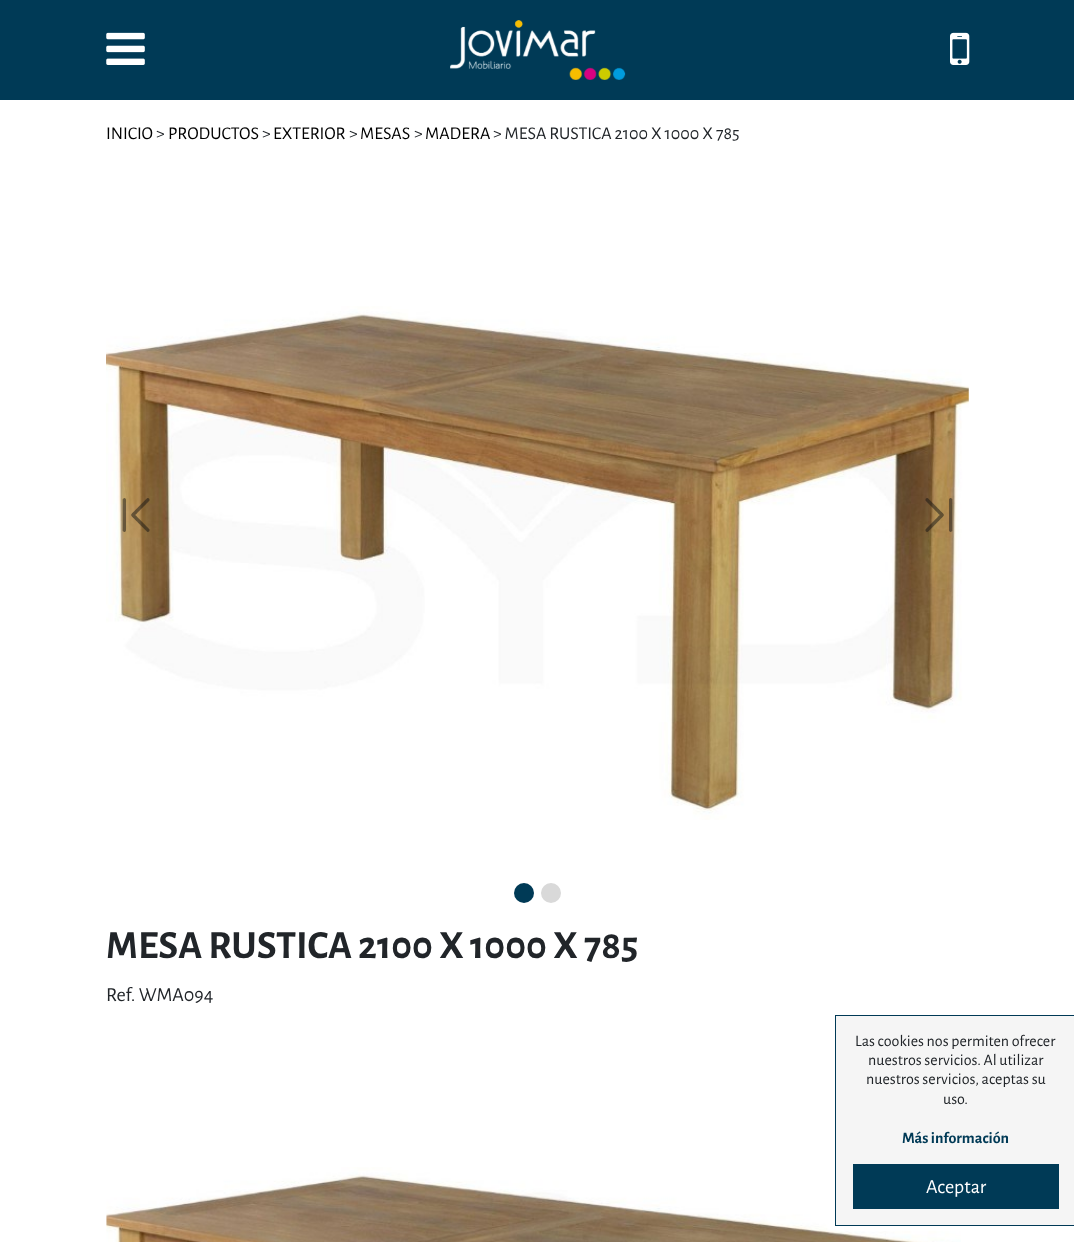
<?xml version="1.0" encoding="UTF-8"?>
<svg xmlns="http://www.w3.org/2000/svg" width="1074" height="1242">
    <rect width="100%" height="100%" fill="#FFFFFF"/>
    <rect x="0" y="0" width="1074" height="100" fill="#003A56"/>
    <image x="106" y="32" width="39" height="33" href="img_01.png"/>
    <image x="450" y="20" width="176" height="60" href="img_02.png"/>
    <image x="950" y="32" width="20" height="33" href="img_03.png"/>
    <text x="106" y="139" font-family="Alegreya Sans" font-size="18" fill="#000000">INICIO</text>
    <text x="156" y="139" font-family="Alegreya Sans" font-size="18" fill="#212529">&gt;</text>
    <text x="168" y="139" font-family="Alegreya Sans" font-size="18" fill="#000000">PRODUCTOS</text>
    <text x="262" y="139" font-family="Alegreya Sans" font-size="18" fill="#212529">&gt;</text>
    <text x="273" y="139" font-family="Alegreya Sans" font-size="18" fill="#000000">EXTERIOR</text>
    <text x="349" y="139" font-family="Alegreya Sans" font-size="18" fill="#212529">&gt;</text>
    <text x="360" y="139" font-family="Alegreya Sans" font-size="18" fill="#000000">MESAS</text>
    <text x="414" y="139" font-family="Alegreya Sans" font-size="18" fill="#212529">&gt;</text>
    <text x="425" y="139" font-family="Alegreya Sans" font-size="18" fill="#000000">MADERA</text>
    <text x="493" y="139" font-family="Alegreya Sans" font-size="18" fill="#212529">&gt; MESA RUSTICA 2100 X 1000 X 785</text>
    <image x="106" y="306" width="863" height="514" href="img_04.png"/>
    <image x="122" y="498" width="28" height="34" href="img_05.png"/>
    <image x="925" y="498" width="28" height="34" href="img_06.png"/>
    <circle cx="524" cy="893" r="10" fill="#003A56"/>
    <circle cx="551" cy="893" r="10" fill="#D9D9D9"/>
    <text x="106" y="958" font-family="Alegreya Sans" font-size="40" font-weight="700" fill="#212529">MESA RUSTICA 2100 X 1000 X 785</text>
    <text x="106" y="1001" font-family="Alegreya Sans" font-size="20" fill="#212529">Ref. WMA094</text>
    <image x="106" y="1167" width="855" height="75" href="img_07.png"/>
    <rect x="836" y="1016" width="238" height="209" fill="#F5F5F5"/>
    <rect x="835" y="1015" width="239" height="1" fill="#003A56"/>
    <rect x="835" y="1225" width="239" height="1" fill="#003A56"/>
    <rect x="835" y="1015" width="1" height="211" fill="#003A56"/>
    <text x="855" y="1046" font-family="Alegreya Sans" font-size="16" fill="#212529">Las cookies nos permiten ofrecer</text>
    <text x="868" y="1065" font-family="Alegreya Sans" font-size="16" fill="#212529">nuestros servicios. Al utilizar</text>
    <text x="866" y="1084" font-family="Alegreya Sans" font-size="16" fill="#212529">nuestros servicios, aceptas su</text>
    <text x="943" y="1104" font-family="Alegreya Sans" font-size="16" fill="#212529">uso.</text>
    <text x="902" y="1143" font-family="Alegreya Sans" font-size="16" font-weight="700" fill="#003A56">Más información</text>
    <rect x="853" y="1164" width="206" height="45" fill="#003A56"/>
    <text x="926" y="1193" font-family="Alegreya Sans" font-size="20" fill="#FFFFFF">Aceptar</text>
</svg>
